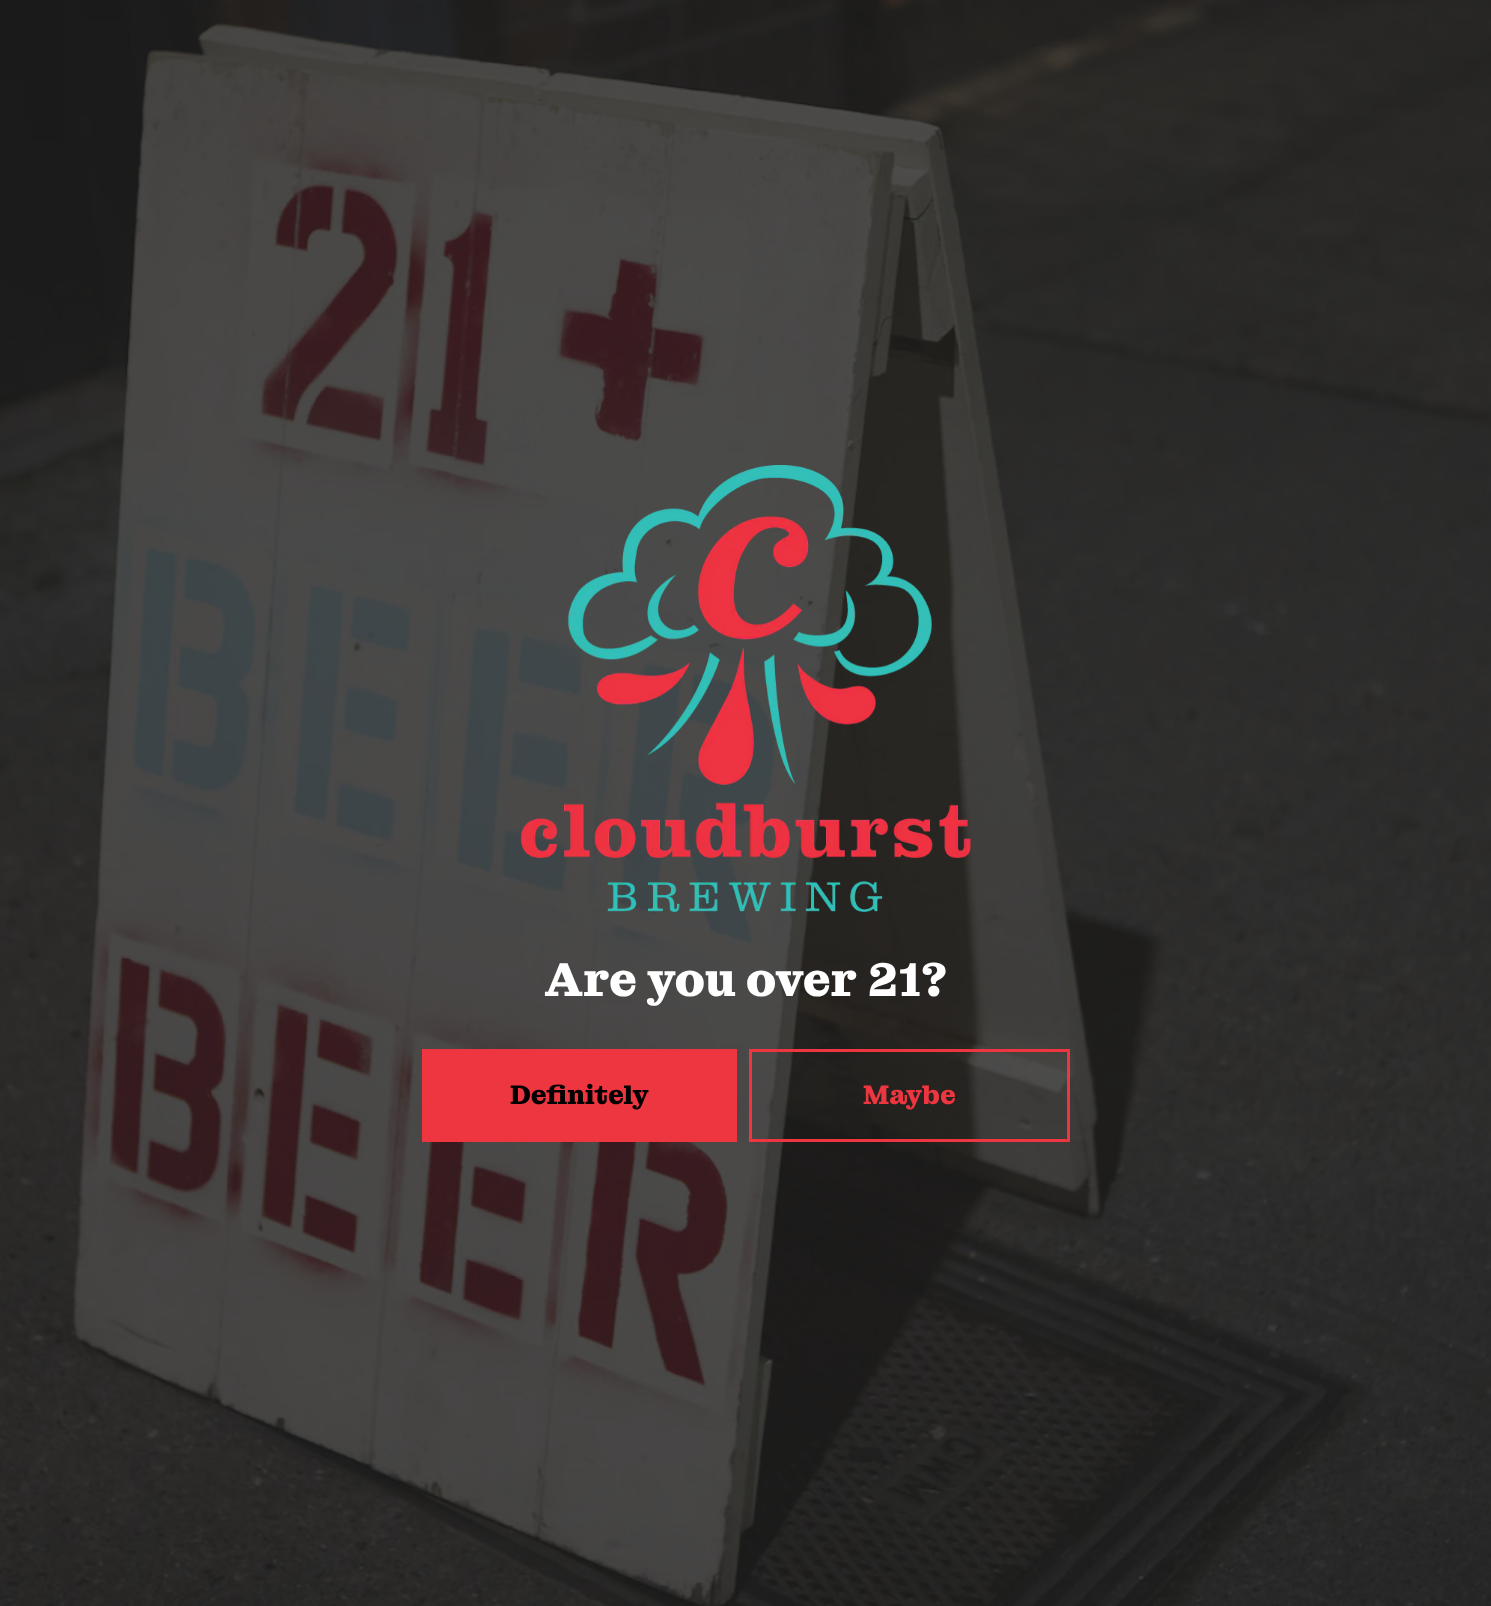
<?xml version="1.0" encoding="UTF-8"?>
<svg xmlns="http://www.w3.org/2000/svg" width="1491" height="1606">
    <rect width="100%" height="100%" fill="#FFFFFF"/>
    <image x="0" y="0" width="1491" height="1606" href="img_01.png"/>
    <image x="520" y="465" width="451" height="447" href="img_02.png"/>
    <text x="544" y="996" font-family="Montagu Slab" font-size="48" font-weight="700" fill="#FFFFFF">Are you over 21?</text>
    <rect x="422" y="1049" width="315" height="93" fill="#EE3640"/>
    <text x="510" y="1104" font-family="Montagu Slab" font-size="27" font-weight="700" fill="#000000">Definitely</text>
    <rect x="750.5" y="1050.5" width="318" height="90" fill="none" stroke="#EE3640" stroke-width="3"/>
    <text x="863" y="1104" font-family="Montagu Slab" font-size="27" font-weight="700" fill="#EE3640">Maybe</text>
</svg>
